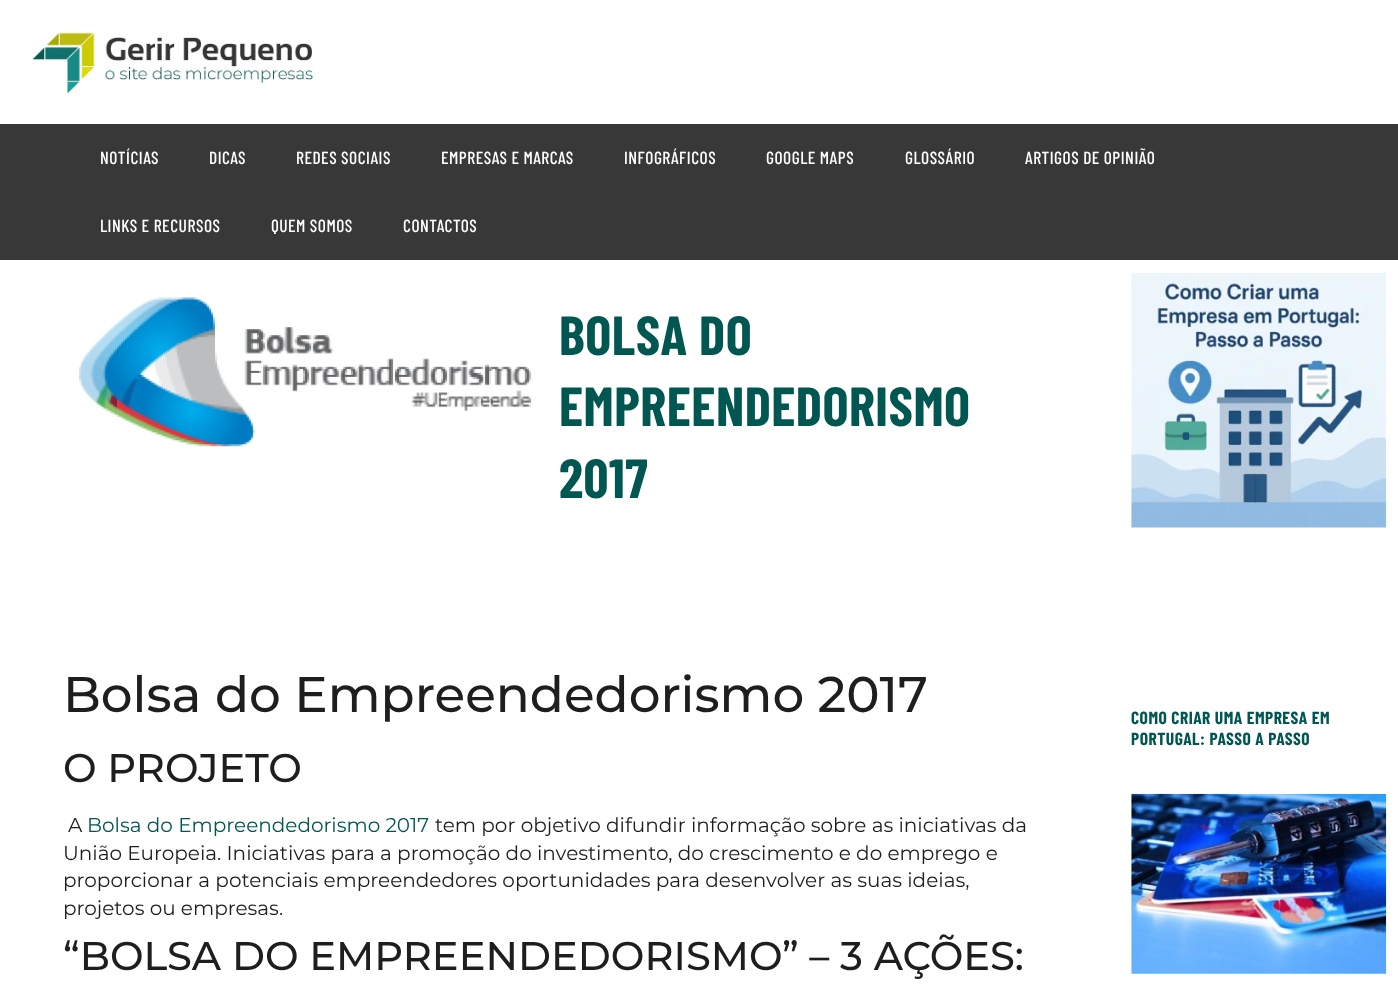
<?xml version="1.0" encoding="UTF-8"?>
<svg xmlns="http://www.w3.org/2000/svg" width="1398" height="995">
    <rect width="100%" height="100%" fill="#FFFFFF"/>
    <image x="32" y="32" width="284" height="62" href="img_01.png"/>
    <rect x="0" y="124" width="1398" height="136" fill="#383838"/>
    <text x="100" y="164" font-family="Barlow Condensed" font-size="17.5" font-weight="500" letter-spacing="0.5" fill="#FFFFFF">NOTÍCIAS</text>
    <text x="209" y="164" font-family="Barlow Condensed" font-size="17.5" font-weight="500" letter-spacing="0.5" fill="#FFFFFF">DICAS</text>
    <text x="296" y="164" font-family="Barlow Condensed" font-size="17.5" font-weight="500" letter-spacing="0.5" fill="#FFFFFF">REDES SOCIAIS</text>
    <text x="441" y="164" font-family="Barlow Condensed" font-size="17.5" font-weight="500" letter-spacing="0.5" fill="#FFFFFF">EMPRESAS E MARCAS</text>
    <text x="624" y="164" font-family="Barlow Condensed" font-size="17.5" font-weight="500" letter-spacing="0.5" fill="#FFFFFF">INFOGRÁFICOS</text>
    <text x="766" y="164" font-family="Barlow Condensed" font-size="17.5" font-weight="500" letter-spacing="0.5" fill="#FFFFFF">GOOGLE MAPS</text>
    <text x="905" y="164" font-family="Barlow Condensed" font-size="17.5" font-weight="500" letter-spacing="0.5" fill="#FFFFFF">GLOSSÁRIO</text>
    <text x="1025" y="164" font-family="Barlow Condensed" font-size="17.5" font-weight="500" letter-spacing="0.5" fill="#FFFFFF">ARTIGOS DE OPINIÃO</text>
    <text x="100" y="232" font-family="Barlow Condensed" font-size="17.5" font-weight="500" letter-spacing="0.5" fill="#FFFFFF">LINKS E RECURSOS</text>
    <text x="271" y="232" font-family="Barlow Condensed" font-size="17.5" font-weight="500" letter-spacing="0.5" fill="#FFFFFF">QUEM SOMOS</text>
    <text x="403" y="232" font-family="Barlow Condensed" font-size="17.5" font-weight="500" letter-spacing="0.5" fill="#FFFFFF">CONTACTOS</text>
    <image x="79" y="297" width="453" height="150" href="img_02.png"/>
    <text font-family="Barlow Condensed" font-size="55" font-weight="700" letter-spacing="0.5" fill="#005752">
        <tspan x="559" y="355">BOLSA DO</tspan>
        <tspan x="559" y="426">EMPREENDEDORISMO</tspan>
        <tspan x="559" y="498">2017</tspan>
    </text>
    <text x="63" y="712" font-family="Montserrat" font-size="50" font-weight="500" fill="#1E1E1E">Bolsa do Empreendedorismo 2017</text>
    <text x="63" y="782" font-family="Montserrat" font-size="40" font-weight="500" fill="#1E1E1E">O PROJETO</text>
    <text x="68" y="832" font-family="Montserrat" font-size="20" fill="#1E1E1E">A</text>
    <text x="87" y="832" font-family="Montserrat" font-size="20" fill="#005752">Bolsa do Empreendedorismo 2017</text>
    <text x="435" y="832" font-family="Montserrat" font-size="20" fill="#1E1E1E">tem por objetivo difundir informação sobre as iniciativas da</text>
    <text font-family="Montserrat" font-size="20" fill="#1E1E1E">
        <tspan x="63" y="860">União Europeia. Iniciativas para a promoção do investimento, do crescimento e do emprego e</tspan>
        <tspan x="63" y="887">proporcionar a potenciais empreendedores oportunidades para desenvolver as suas ideias,</tspan>
        <tspan x="63" y="915">projetos ou empresas.</tspan>
    </text>
    <text x="63" y="970" font-family="Montserrat" font-size="40" font-weight="500" fill="#1E1E1E">“BOLSA DO EMPREENDEDORISMO” – 3 AÇÕES:</text>
    <image x="1131" y="272" width="256" height="256" href="img_03.png"/>
    <text font-family="Barlow Condensed" font-size="17.5" font-weight="700" letter-spacing="0.5" fill="#005752">
        <tspan x="1131" y="724">COMO CRIAR UMA EMPRESA EM</tspan>
        <tspan x="1131" y="745">PORTUGAL: PASSO A PASSO</tspan>
    </text>
    <image x="1131" y="793" width="256" height="181" href="img_04.png"/>
</svg>
